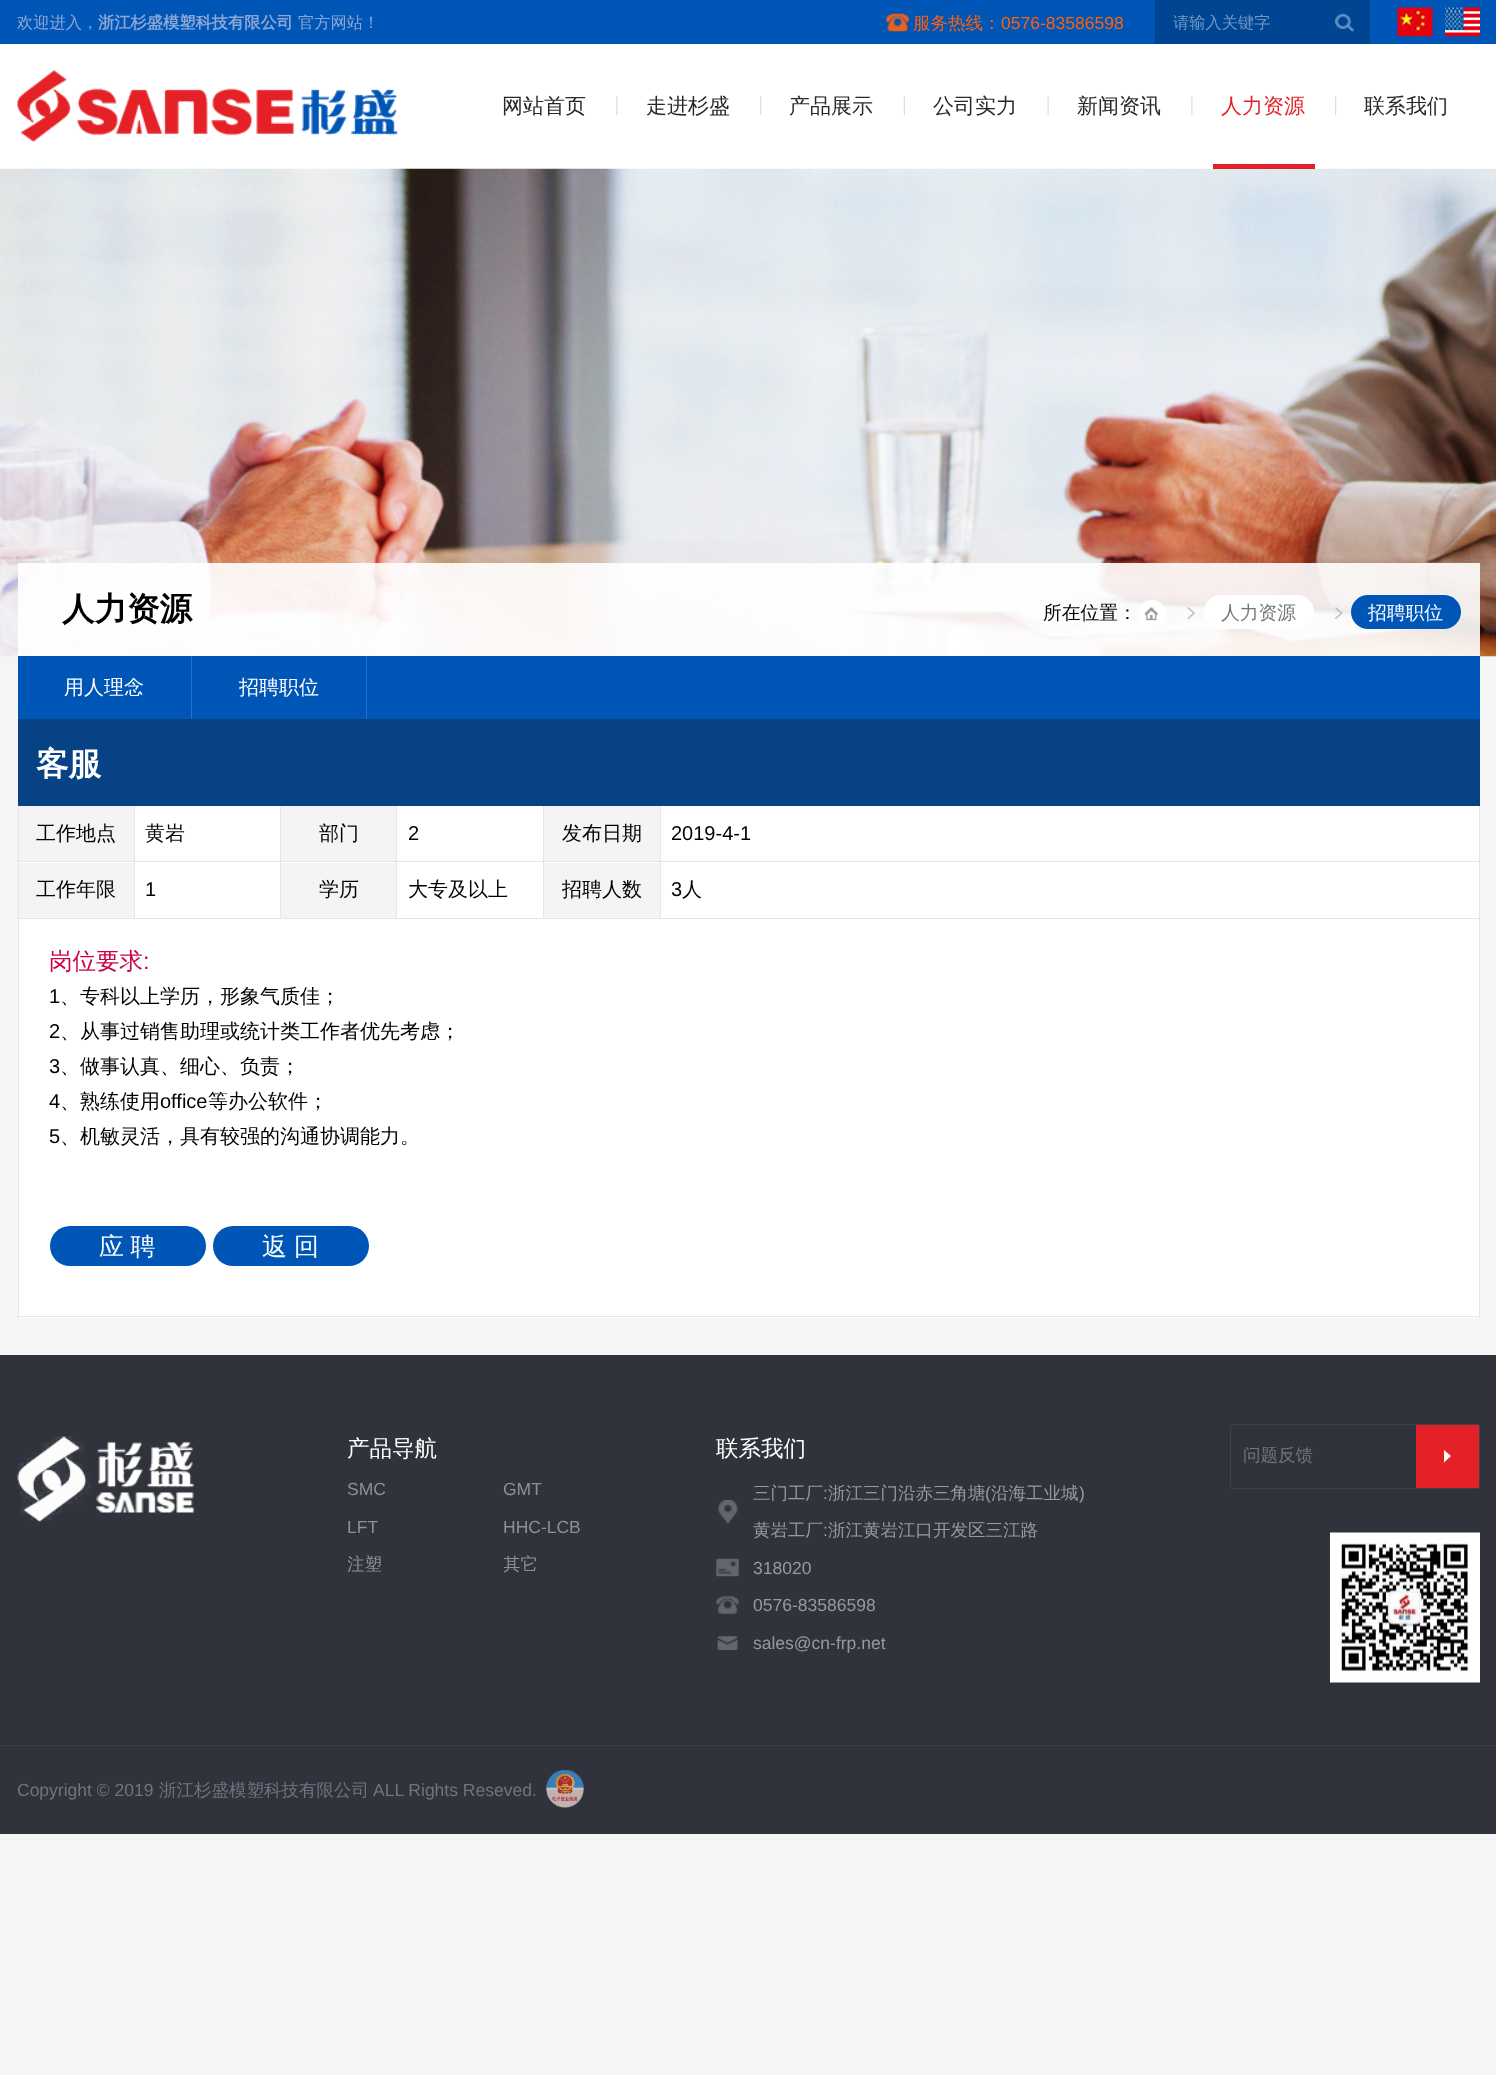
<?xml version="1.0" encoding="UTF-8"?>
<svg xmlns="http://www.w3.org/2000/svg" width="1496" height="2075">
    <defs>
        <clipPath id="clip1"><rect x="348" y="1549" width="150" height="37"/></clipPath>
        <clipPath id="clip2"><rect x="504" y="1549" width="150" height="37"/></clipPath>
    </defs>
    <rect width="100%" height="100%" fill="#F5F5F5"/>
    <rect x="0" y="0" width="1496" height="44" fill="#0056B6"/>
    <text x="17" y="28" font-family="WenQuanYi Zen Hei" font-size="16.25" font-weight="500" fill="#8DA7D5">欢迎进入，</text>
    <text x="98" y="28" font-family="WenQuanYi Zen Hei" font-size="16.25" font-weight="700" fill="#8DA7D5">浙江杉盛模塑科技有限公司</text>
    <text x="298" y="28" font-family="WenQuanYi Zen Hei" font-size="16.25" font-weight="500" fill="#8DA7D5">官方网站！</text>
    <image x="886" y="13" width="23" height="19" href="img_01.png"/>
    <text x="913" y="29" font-family="WenQuanYi Zen Hei" font-size="17.5" font-weight="500" fill="#FC610E">服务热线：</text>
    <text x="1001" y="29" font-family="Liberation Sans" font-size="17.5" fill="#FC610E">0576-83586598</text>
    <rect x="1155" y="0" width="215" height="44" fill="#004592"/>
    <text x="1173" y="28" font-family="WenQuanYi Zen Hei" font-size="16.25" font-weight="500" fill="#6D97C5">请输入关键字</text>
    <image x="1335" y="13" width="19" height="19" href="img_02.png"/>
    <image x="1397" y="7" width="36" height="30" href="img_03.png"/>
    <image x="1445" y="7" width="35" height="30" href="img_04.png"/>
    <rect x="0" y="44" width="1496" height="125" fill="#FFFFFF"/>
    <image x="17" y="70" width="381" height="72" href="img_05.png"/>
    <text x="502" y="113" font-family="WenQuanYi Zen Hei" font-size="21" font-weight="500" fill="#282828">网站首页</text>
    <image x="616" y="96" width="2" height="19" href="img_06.png"/>
    <text x="646" y="113" font-family="WenQuanYi Zen Hei" font-size="21" font-weight="500" fill="#282828">走进杉盛</text>
    <image x="760" y="96" width="2" height="19" href="img_07.png"/>
    <text x="789" y="113" font-family="WenQuanYi Zen Hei" font-size="21" font-weight="500" fill="#282828">产品展示</text>
    <image x="903" y="96" width="2" height="19" href="img_08.png"/>
    <text x="933" y="113" font-family="WenQuanYi Zen Hei" font-size="21" font-weight="500" fill="#282828">公司实力</text>
    <image x="1047" y="96" width="2" height="19" href="img_09.png"/>
    <text x="1077" y="113" font-family="WenQuanYi Zen Hei" font-size="21" font-weight="500" fill="#282828">新闻资讯</text>
    <image x="1191" y="96" width="2" height="19" href="img_06.png"/>
    <image x="0" y="168" width="1496" height="489" href="img_10.png"/>
    <rect x="1213" y="164" width="102" height="5" fill="#E52128"/>
    <text x="1221" y="113" font-family="WenQuanYi Zen Hei" font-size="21" font-weight="500" fill="#E52128">人力资源</text>
    <image x="1335" y="96" width="2" height="19" href="img_07.png"/>
    <text x="1364" y="113" font-family="WenQuanYi Zen Hei" font-size="21" font-weight="500" fill="#282828">联系我们</text>
    <rect x="18" y="563" width="1462" height="93" fill="#FFFFFF" fill-opacity="0.9"/>
    <text x="62" y="620" font-family="WenQuanYi Zen Hei" font-size="32.5" font-weight="700" fill="#000000">人力资源</text>
    <text x="1043" y="619" font-family="WenQuanYi Zen Hei" font-size="18.75" font-weight="500" fill="#000000">所在位置：</text>
    <image x="1139" y="600" width="27" height="24" href="img_11.png"/>
    <image x="1187" y="607" width="8" height="12" href="img_12.png"/>
    <rect x="1204" y="595" width="110" height="34" rx="17" fill="#FFFFFF"/>
    <text x="1221" y="619" font-family="WenQuanYi Zen Hei" font-size="18.75" font-weight="500" fill="#757575">人力资源</text>
    <image x="1335" y="607" width="8" height="12" href="img_13.png"/>
    <rect x="1351" y="595" width="110" height="34" rx="17" fill="#0056B6"/>
    <text x="1368" y="619" font-family="WenQuanYi Zen Hei" font-size="18.75" font-weight="500" fill="#FFFFFF">招聘职位</text>
    <rect x="18" y="656" width="1462" height="63" fill="#0056B6"/>
    <rect x="191" y="656" width="1" height="63" fill="#2075D4"/>
    <text x="64" y="694" font-family="WenQuanYi Zen Hei" font-size="20" font-weight="500" fill="#FFFFFF">用人理念</text>
    <rect x="366" y="656" width="1" height="63" fill="#2075D4"/>
    <text x="239" y="694" font-family="WenQuanYi Zen Hei" font-size="20" font-weight="500" fill="#FFFFFF">招聘职位</text>
    <rect x="19" y="806" width="1460" height="512" fill="#FFFFFF"/>
    <rect x="18" y="719" width="1462" height="87" fill="#074284"/>
    <text x="36" y="775" font-family="WenQuanYi Zen Hei" font-size="32.5" font-weight="700" fill="#FFFFFF">客服</text>
    <rect x="1479" y="806" width="1" height="512" fill="#E6E5E5"/>
    <rect x="19" y="806" width="115" height="55" fill="#F4F4F4"/>
    <rect x="18" y="861" width="1461" height="1" fill="#E6E5E5"/>
    <rect x="18" y="806" width="1" height="57" fill="#E6E5E5"/>
    <text x="36" y="840" font-family="WenQuanYi Zen Hei" font-size="20" font-weight="500" fill="#000000">工作地点</text>
    <rect x="134" y="806" width="1" height="57" fill="#E6E5E5"/>
    <text x="145" y="840" font-family="WenQuanYi Zen Hei" font-size="20" font-weight="500" fill="#000000">黄岩</text>
    <rect x="281" y="806" width="115" height="55" fill="#F4F4F4"/>
    <rect x="280" y="806" width="1" height="57" fill="#E6E5E5"/>
    <text x="319" y="840" font-family="WenQuanYi Zen Hei" font-size="20" font-weight="500" fill="#000000">部门</text>
    <rect x="396" y="806" width="1" height="57" fill="#E6E5E5"/>
    <text x="408" y="840" font-family="Liberation Sans" font-size="20" fill="#000000">2</text>
    <rect x="544" y="806" width="116" height="55" fill="#F4F4F4"/>
    <rect x="543" y="806" width="1" height="57" fill="#E6E5E5"/>
    <text x="562" y="840" font-family="WenQuanYi Zen Hei" font-size="20" font-weight="500" fill="#000000">发布日期</text>
    <rect x="660" y="806" width="1" height="57" fill="#E6E5E5"/>
    <text x="671" y="840" font-family="Liberation Sans" font-size="20" fill="#000000">2019-4-1</text>
    <rect x="19" y="863" width="115" height="55" fill="#F4F4F4"/>
    <rect x="18" y="918" width="1461" height="1" fill="#E6E5E5"/>
    <rect x="18" y="863" width="1" height="56" fill="#E6E5E5"/>
    <text x="36" y="896" font-family="WenQuanYi Zen Hei" font-size="20" font-weight="500" fill="#000000">工作年限</text>
    <rect x="134" y="863" width="1" height="56" fill="#E6E5E5"/>
    <text x="145" y="896" font-family="Liberation Sans" font-size="20" fill="#000000">1</text>
    <rect x="281" y="863" width="115" height="55" fill="#F4F4F4"/>
    <rect x="280" y="863" width="1" height="56" fill="#E6E5E5"/>
    <text x="319" y="896" font-family="WenQuanYi Zen Hei" font-size="20" font-weight="500" fill="#000000">学历</text>
    <rect x="396" y="863" width="1" height="56" fill="#E6E5E5"/>
    <text x="408" y="896" font-family="WenQuanYi Zen Hei" font-size="20" font-weight="500" fill="#000000">大专及以上</text>
    <rect x="544" y="863" width="116" height="55" fill="#F4F4F4"/>
    <rect x="543" y="863" width="1" height="56" fill="#E6E5E5"/>
    <text x="562" y="896" font-family="WenQuanYi Zen Hei" font-size="20" font-weight="500" fill="#000000">招聘人数</text>
    <rect x="660" y="863" width="1" height="56" fill="#E6E5E5"/>
    <text x="671" y="896" font-family="Liberation Sans" font-size="20" fill="#000000">3</text>
    <text x="682" y="896" font-family="WenQuanYi Zen Hei" font-size="20" font-weight="500" fill="#000000">人</text>
    <rect x="18" y="1316" width="1461" height="1" fill="#E6E5E5"/>
    <rect x="18" y="919" width="1" height="399" fill="#E6E5E5"/>
    <text x="49" y="969" font-family="WenQuanYi Zen Hei" font-size="23.5" font-weight="500" fill="#CD0143">岗位要求</text>
    <text x="143" y="969" font-family="Liberation Sans" font-size="23.5" fill="#CD0143">:</text>
    <text x="49" y="1003" font-family="Liberation Sans" font-size="20" fill="#000000">1</text>
    <text x="60" y="1003" font-family="WenQuanYi Zen Hei" font-size="20" font-weight="500" fill="#000000">、专科以上学历，形象气质佳；</text>
    <text x="49" y="1038" font-family="Liberation Sans" font-size="20" fill="#000000">2</text>
    <text x="60" y="1038" font-family="WenQuanYi Zen Hei" font-size="20" font-weight="500" fill="#000000">、从事过销售助理或统计类工作者优先考虑；</text>
    <text x="49" y="1073" font-family="Liberation Sans" font-size="20" fill="#000000">3</text>
    <text x="60" y="1073" font-family="WenQuanYi Zen Hei" font-size="20" font-weight="500" fill="#000000">、做事认真、细心、负责；</text>
    <text x="49" y="1108" font-family="Liberation Sans" font-size="20" fill="#000000">4</text>
    <text x="60" y="1108" font-family="WenQuanYi Zen Hei" font-size="20" font-weight="500" fill="#000000">、熟练使用</text>
    <text x="160" y="1108" font-family="Liberation Sans" font-size="20" fill="#000000">office</text>
    <text x="208" y="1108" font-family="WenQuanYi Zen Hei" font-size="20" font-weight="500" fill="#000000">等办公软件；</text>
    <text x="49" y="1143" font-family="Liberation Sans" font-size="20" fill="#000000">5</text>
    <text x="60" y="1143" font-family="WenQuanYi Zen Hei" font-size="20" font-weight="500" fill="#000000">、机敏灵活，具有较强的沟通协调能力。</text>
    <rect x="50" y="1226" width="156" height="40" rx="20" fill="#0056B6"/>
    <text x="99" y="1255" word-spacing="-1" font-family="WenQuanYi Zen Hei" font-size="25" font-weight="500" fill="#FFFFFF">应 聘</text>
    <rect x="213" y="1226" width="156" height="40" rx="20" fill="#0056B6"/>
    <text x="262" y="1255" font-family="WenQuanYi Zen Hei" font-size="25" font-weight="500" fill="#FFFFFF">返</text>
    <text x="294" y="1255" font-family="WenQuanYi Zen Hei" font-size="25" font-weight="500" fill="#FFFFFF">回</text>
    <rect x="0" y="1355" width="1496" height="479" fill="#31333C"/>
    <image x="17" y="1436" width="177" height="86" href="img_14.png"/>
    <text x="347" y="1456" font-family="WenQuanYi Zen Hei" font-size="22.5" font-weight="500" fill="#FFFFFF">产品导航</text>
    <text x="347" y="1495" font-family="Liberation Sans" font-size="17.5" fill="#8D8F9B">SMC</text>
    <text x="503" y="1495" font-family="Liberation Sans" font-size="17.5" fill="#8D8F9B">GMT</text>
    <text x="347" y="1533" font-family="Liberation Sans" font-size="17.5" fill="#8D8F9B">LFT</text>
    <text x="503" y="1533" font-family="Liberation Sans" font-size="17.5" fill="#8D8F9B">HHC-LCB</text>
    <g clip-path="url(#clip1)">
        <text x="347" y="1570" font-family="WenQuanYi Zen Hei" font-size="17.5" font-weight="500" fill="#8D8F9B">注塑</text>
    </g>
    <g clip-path="url(#clip2)">
        <text x="503" y="1570" font-family="WenQuanYi Zen Hei" font-size="17.5" font-weight="500" fill="#8D8F9B">其它</text>
    </g>
    <text x="716" y="1456" font-family="WenQuanYi Zen Hei" font-size="22.5" font-weight="500" fill="#FFFFFF">联系我们</text>
    <image x="717" y="1500" width="21" height="24" href="img_15.png"/>
    <text x="753" y="1499" font-family="WenQuanYi Zen Hei" font-size="17.5" font-weight="500" fill="#98999E">三门工厂</text>
    <text x="823" y="1499" font-family="Liberation Sans" font-size="17.5" fill="#98999E">:</text>
    <text x="828" y="1499" font-family="WenQuanYi Zen Hei" font-size="17.5" font-weight="500" fill="#98999E">浙江三门沿赤三角塘</text>
    <text x="985" y="1499" font-family="Liberation Sans" font-size="17.5" fill="#98999E">(</text>
    <text x="991" y="1499" font-family="WenQuanYi Zen Hei" font-size="17.5" font-weight="500" fill="#98999E">沿海工业城</text>
    <text x="1079" y="1499" font-family="Liberation Sans" font-size="17.5" fill="#98999E">)</text>
    <text x="753" y="1536" font-family="WenQuanYi Zen Hei" font-size="17.5" font-weight="500" fill="#98999E">黄岩工厂</text>
    <text x="823" y="1536" font-family="Liberation Sans" font-size="17.5" fill="#98999E">:</text>
    <text x="828" y="1536" font-family="WenQuanYi Zen Hei" font-size="17.5" font-weight="500" fill="#98999E">浙江黄岩江口开发区三江路</text>
    <image x="716" y="1558" width="23" height="19" href="img_16.png"/>
    <text x="753" y="1574" font-family="Liberation Sans" font-size="17.5" fill="#98999E">318020</text>
    <image x="716" y="1596" width="23" height="18" href="img_17.png"/>
    <text x="753" y="1611" font-family="Liberation Sans" font-size="17.5" fill="#98999E">0576-83586598</text>
    <image x="717" y="1636" width="21" height="14" href="img_18.png"/>
    <text x="753" y="1649" font-family="Liberation Sans" font-size="17.5" fill="#98999E">sales@cn-frp.net</text>
    <rect x="1230.5" y="1424.5" width="249" height="64" rx="2" fill="none" stroke="#40414A"/>
    <text x="1243" y="1461" font-family="WenQuanYi Zen Hei" font-size="17.5" font-weight="500" fill="#757575">问题反馈</text>
    <path d="M 1416 1425 H 1478 C 1478.5 1425 1479 1425.5 1479 1426 V 1487 C 1479 1487.5 1478.5 1488 1478 1488 H 1416 Z" fill="#E52128"/>
    <path d="M 1444 1462.5 V 1450 L 1451 1456 Z" fill="#FFFFFF"/>
    <image x="1330" y="1532" width="150" height="151" href="img_19.png"/>
    <rect x="0" y="1745" width="1496" height="1" fill="#3C3D46"/>
    <text x="17" y="1796" font-family="Liberation Sans" font-size="17.5" fill="#71737F">Copyright © 2019</text>
    <text x="159" y="1796" font-family="WenQuanYi Zen Hei" font-size="17.5" font-weight="500" fill="#71737F">浙江杉盛模塑科技有限公司</text>
    <text x="373" y="1796" font-family="Liberation Sans" font-size="17.5" fill="#71737F">ALL Rights Reseved.</text>
    <image x="546" y="1770" width="38" height="38" href="img_20.png"/>
</svg>
